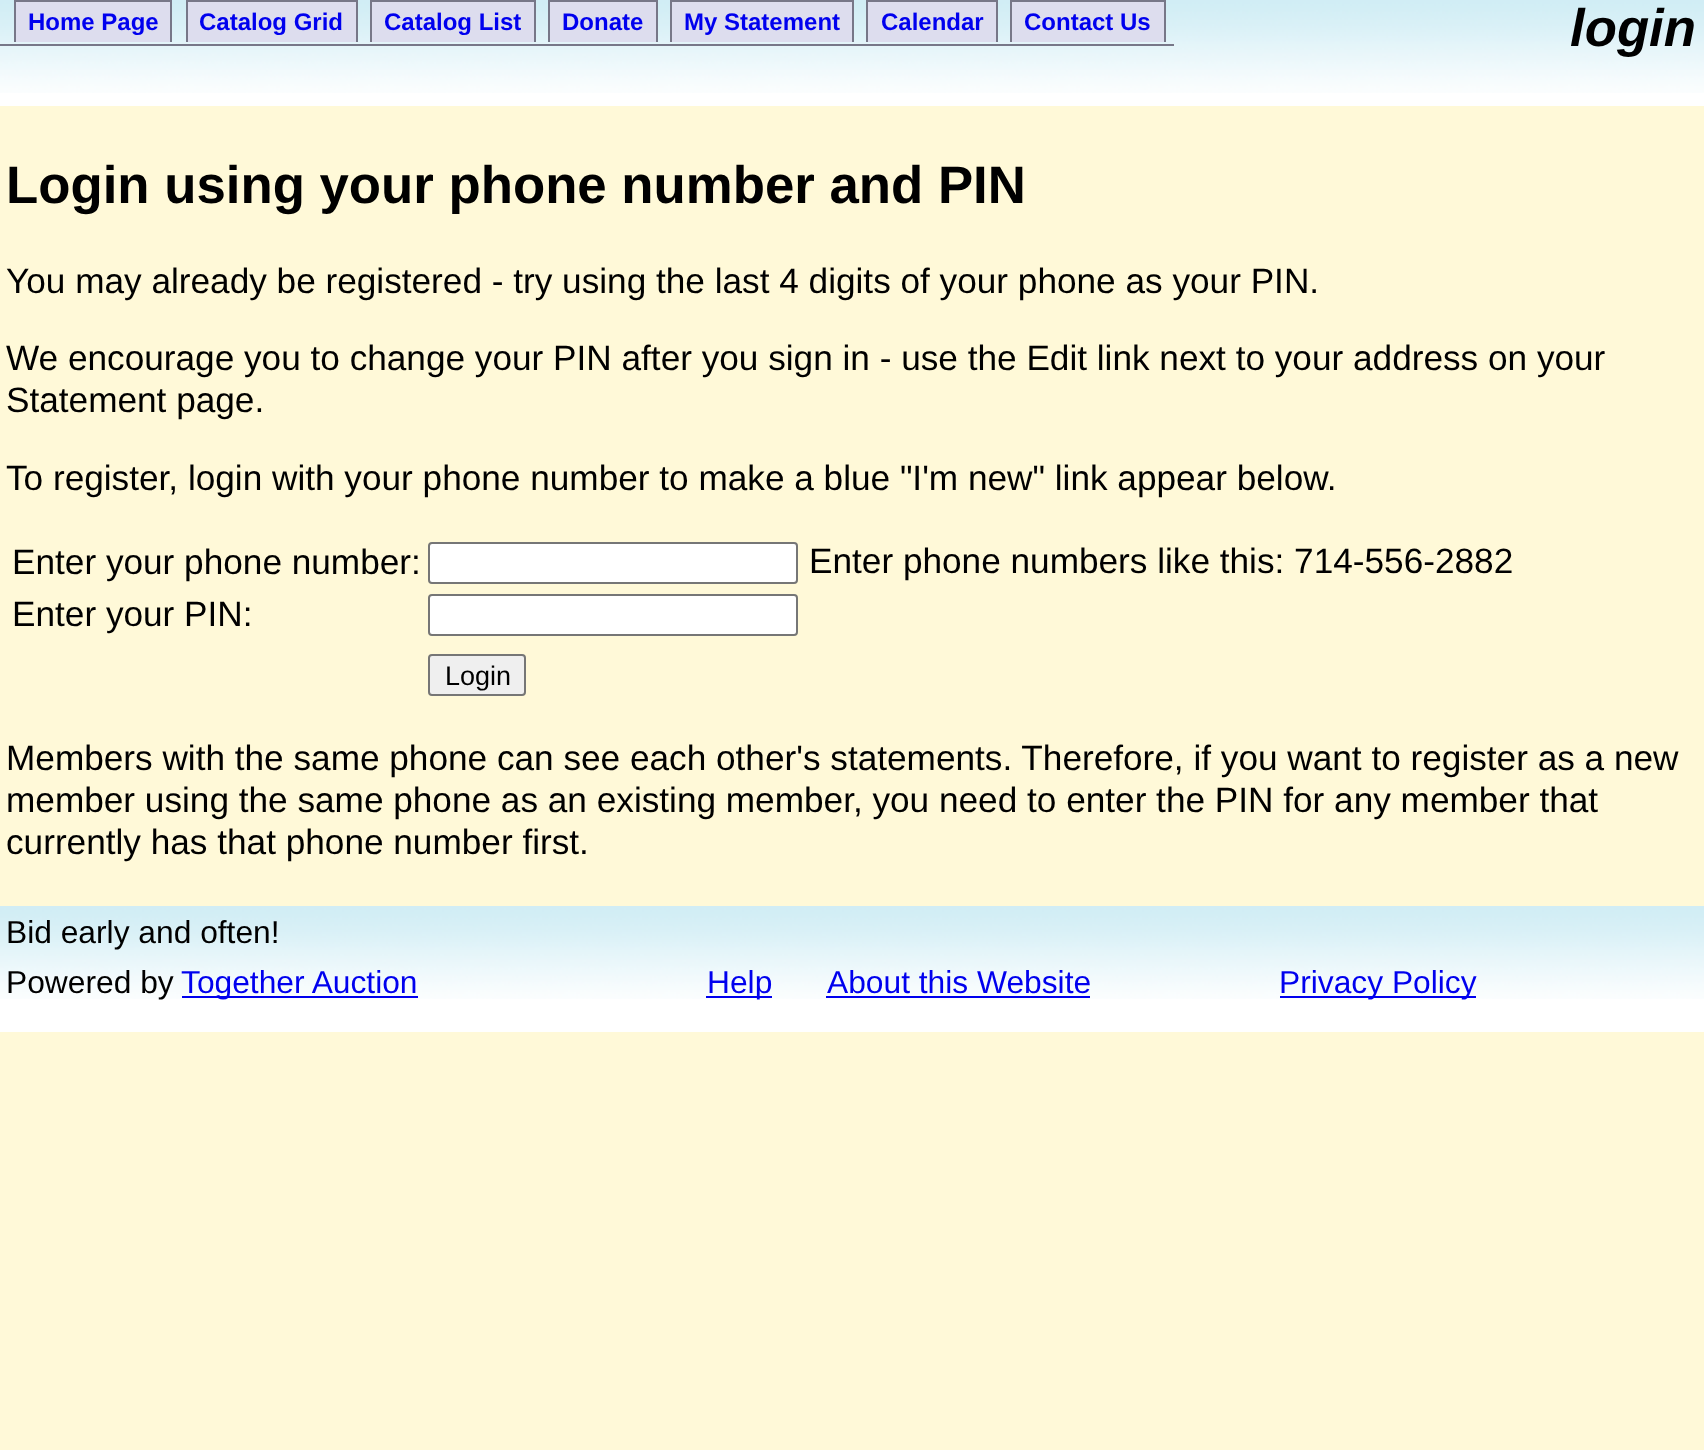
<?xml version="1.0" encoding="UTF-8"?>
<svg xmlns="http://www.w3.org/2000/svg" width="1704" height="1450">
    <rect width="100%" height="100%" fill="#FFF9D8"/>
    <rect x="0" y="93" width="1704" height="13" fill="#FFFFFF"/>
    <image x="0" y="0" width="1704" height="93" href="img_01.png"/>
    <rect x="0" y="44" width="1174" height="2" fill="#777788"/>
    <rect x="16" y="2" width="154" height="40" fill="#DDDDEE"/>
    <text x="28" y="30" font-family="Liberation Sans" font-size="24" font-weight="700" fill="#0000EE">Home Page</text>
    <rect x="14" y="0" width="158" height="2" fill="#777788"/>
    <rect x="170" y="0" width="2" height="42" fill="#777788"/>
    <rect x="14" y="0" width="2" height="42" fill="#777788"/>
    <rect x="188" y="2" width="168" height="40" fill="#DDDDEE"/>
    <text x="199" y="30" font-family="Liberation Sans" font-size="24" font-weight="700" fill="#0000EE">Catalog Grid</text>
    <rect x="186" y="0" width="172" height="2" fill="#777788"/>
    <rect x="356" y="0" width="2" height="42" fill="#777788"/>
    <rect x="186" y="0" width="2" height="42" fill="#777788"/>
    <rect x="372" y="2" width="162" height="40" fill="#DDDDEE"/>
    <text x="384" y="30" font-family="Liberation Sans" font-size="24" font-weight="700" fill="#0000EE">Catalog List</text>
    <rect x="370" y="0" width="166" height="2" fill="#777788"/>
    <rect x="534" y="0" width="2" height="42" fill="#777788"/>
    <rect x="370" y="0" width="2" height="42" fill="#777788"/>
    <rect x="550" y="2" width="106" height="40" fill="#DDDDEE"/>
    <text x="562" y="30" font-family="Liberation Sans" font-size="24" font-weight="700" fill="#0000EE">Donate</text>
    <rect x="548" y="0" width="110" height="2" fill="#777788"/>
    <rect x="656" y="0" width="2" height="42" fill="#777788"/>
    <rect x="548" y="0" width="2" height="42" fill="#777788"/>
    <rect x="672" y="2" width="180" height="40" fill="#DDDDEE"/>
    <text x="684" y="30" font-family="Liberation Sans" font-size="24" font-weight="700" fill="#0000EE">My Statement</text>
    <rect x="670" y="0" width="184" height="2" fill="#777788"/>
    <rect x="852" y="0" width="2" height="42" fill="#777788"/>
    <rect x="670" y="0" width="2" height="42" fill="#777788"/>
    <rect x="868" y="2" width="128" height="40" fill="#DDDDEE"/>
    <text x="881" y="30" font-family="Liberation Sans" font-size="24" font-weight="700" fill="#0000EE">Calendar</text>
    <rect x="866" y="0" width="132" height="2" fill="#777788"/>
    <rect x="996" y="0" width="2" height="42" fill="#777788"/>
    <rect x="866" y="0" width="2" height="42" fill="#777788"/>
    <rect x="1012" y="2" width="152" height="40" fill="#DDDDEE"/>
    <text x="1024" y="30" font-family="Liberation Sans" font-size="24" font-weight="700" fill="#0000EE">Contact Us</text>
    <rect x="1010" y="0" width="156" height="2" fill="#777788"/>
    <rect x="1164" y="0" width="2" height="42" fill="#777788"/>
    <rect x="1010" y="0" width="2" height="42" fill="#777788"/>
    <text x="1570" y="46" font-family="Liberation Sans" font-size="52.75" font-weight="700" font-style="italic" fill="#000000">login</text>
    <text x="6" y="203" font-family="Liberation Sans" font-size="52.75" font-weight="700" fill="#000000">Login using your phone number and PIN</text>
    <text x="6" y="293" font-family="Liberation Sans" font-size="35.2" fill="#000000">You may already be registered - try using the last 4 digits of your phone as your PIN.</text>
    <text font-family="Liberation Sans" font-size="35.2" fill="#000000">
        <tspan x="6" y="370">We encourage you to change your PIN after you sign in - use the Edit link next to your address on your</tspan>
        <tspan x="6" y="412">Statement page.</tspan>
    </text>
    <text x="6" y="490" font-family="Liberation Sans" font-size="35.2" fill="#000000">To register, login with your phone number to make a blue "I'm new" link appear below.</text>
    <text x="12" y="574" font-family="Liberation Sans" font-size="35.2" fill="#000000">Enter your phone number:</text>
    <rect x="429" y="543" width="368" height="40" rx="3" fill="#FFFFFF" stroke="#767676" stroke-width="2"/>
    <text x="809" y="573" font-family="Liberation Sans" font-size="35.2" fill="#000000">Enter phone numbers like this: 714-556-2882</text>
    <text x="12" y="626" font-family="Liberation Sans" font-size="35.2" fill="#000000">Enter your PIN:</text>
    <rect x="429" y="595" width="368" height="40" rx="3" fill="#FFFFFF" stroke="#767676" stroke-width="2"/>
    <rect x="429" y="655" width="96" height="40" rx="3" fill="#EFEFEF" stroke="#767676" stroke-width="2"/>
    <text x="445" y="685" font-family="Liberation Sans" font-size="27" fill="#000000">Login</text>
    <text font-family="Liberation Sans" font-size="35.2" fill="#000000">
        <tspan x="6" y="770">Members with the same phone can see each other's statements. Therefore, if you want to register as a new</tspan>
        <tspan x="6" y="812">member using the same phone as an existing member, you need to enter the PIN for any member that</tspan>
        <tspan x="6" y="854">currently has that phone number first.</tspan>
    </text>
    <rect x="0" y="999" width="1704" height="33" fill="#FFFFFF"/>
    <image x="0" y="906" width="1704" height="93" href="img_01.png"/>
    <text font-family="Liberation Sans" font-size="31.75" fill="#000000">
        <tspan x="6" y="943">Bid early and often!</tspan>
        <tspan x="6" y="993">Powered by</tspan>
    </text>
    <rect x="182" y="996" width="236" height="2" fill="#0000EE"/>
    <text x="181" y="993" font-family="Liberation Sans" font-size="31.75" fill="#0000EE">Together Auction</text>
    <rect x="706" y="996" width="66" height="2" fill="#0000EE"/>
    <text x="707" y="993" font-family="Liberation Sans" font-size="31.75" fill="#0000EE">Help</text>
    <text x="827" y="993" font-family="Liberation Sans" font-size="31.75" fill="#0000EE">About this Website</text>
    <rect x="826" y="996" width="264" height="2" fill="#0000EE"/>
    <rect x="1280" y="996" width="196" height="2" fill="#0000EE"/>
    <text x="1279" y="993" font-family="Liberation Sans" font-size="31.75" fill="#0000EE">Privacy Policy</text>
</svg>
